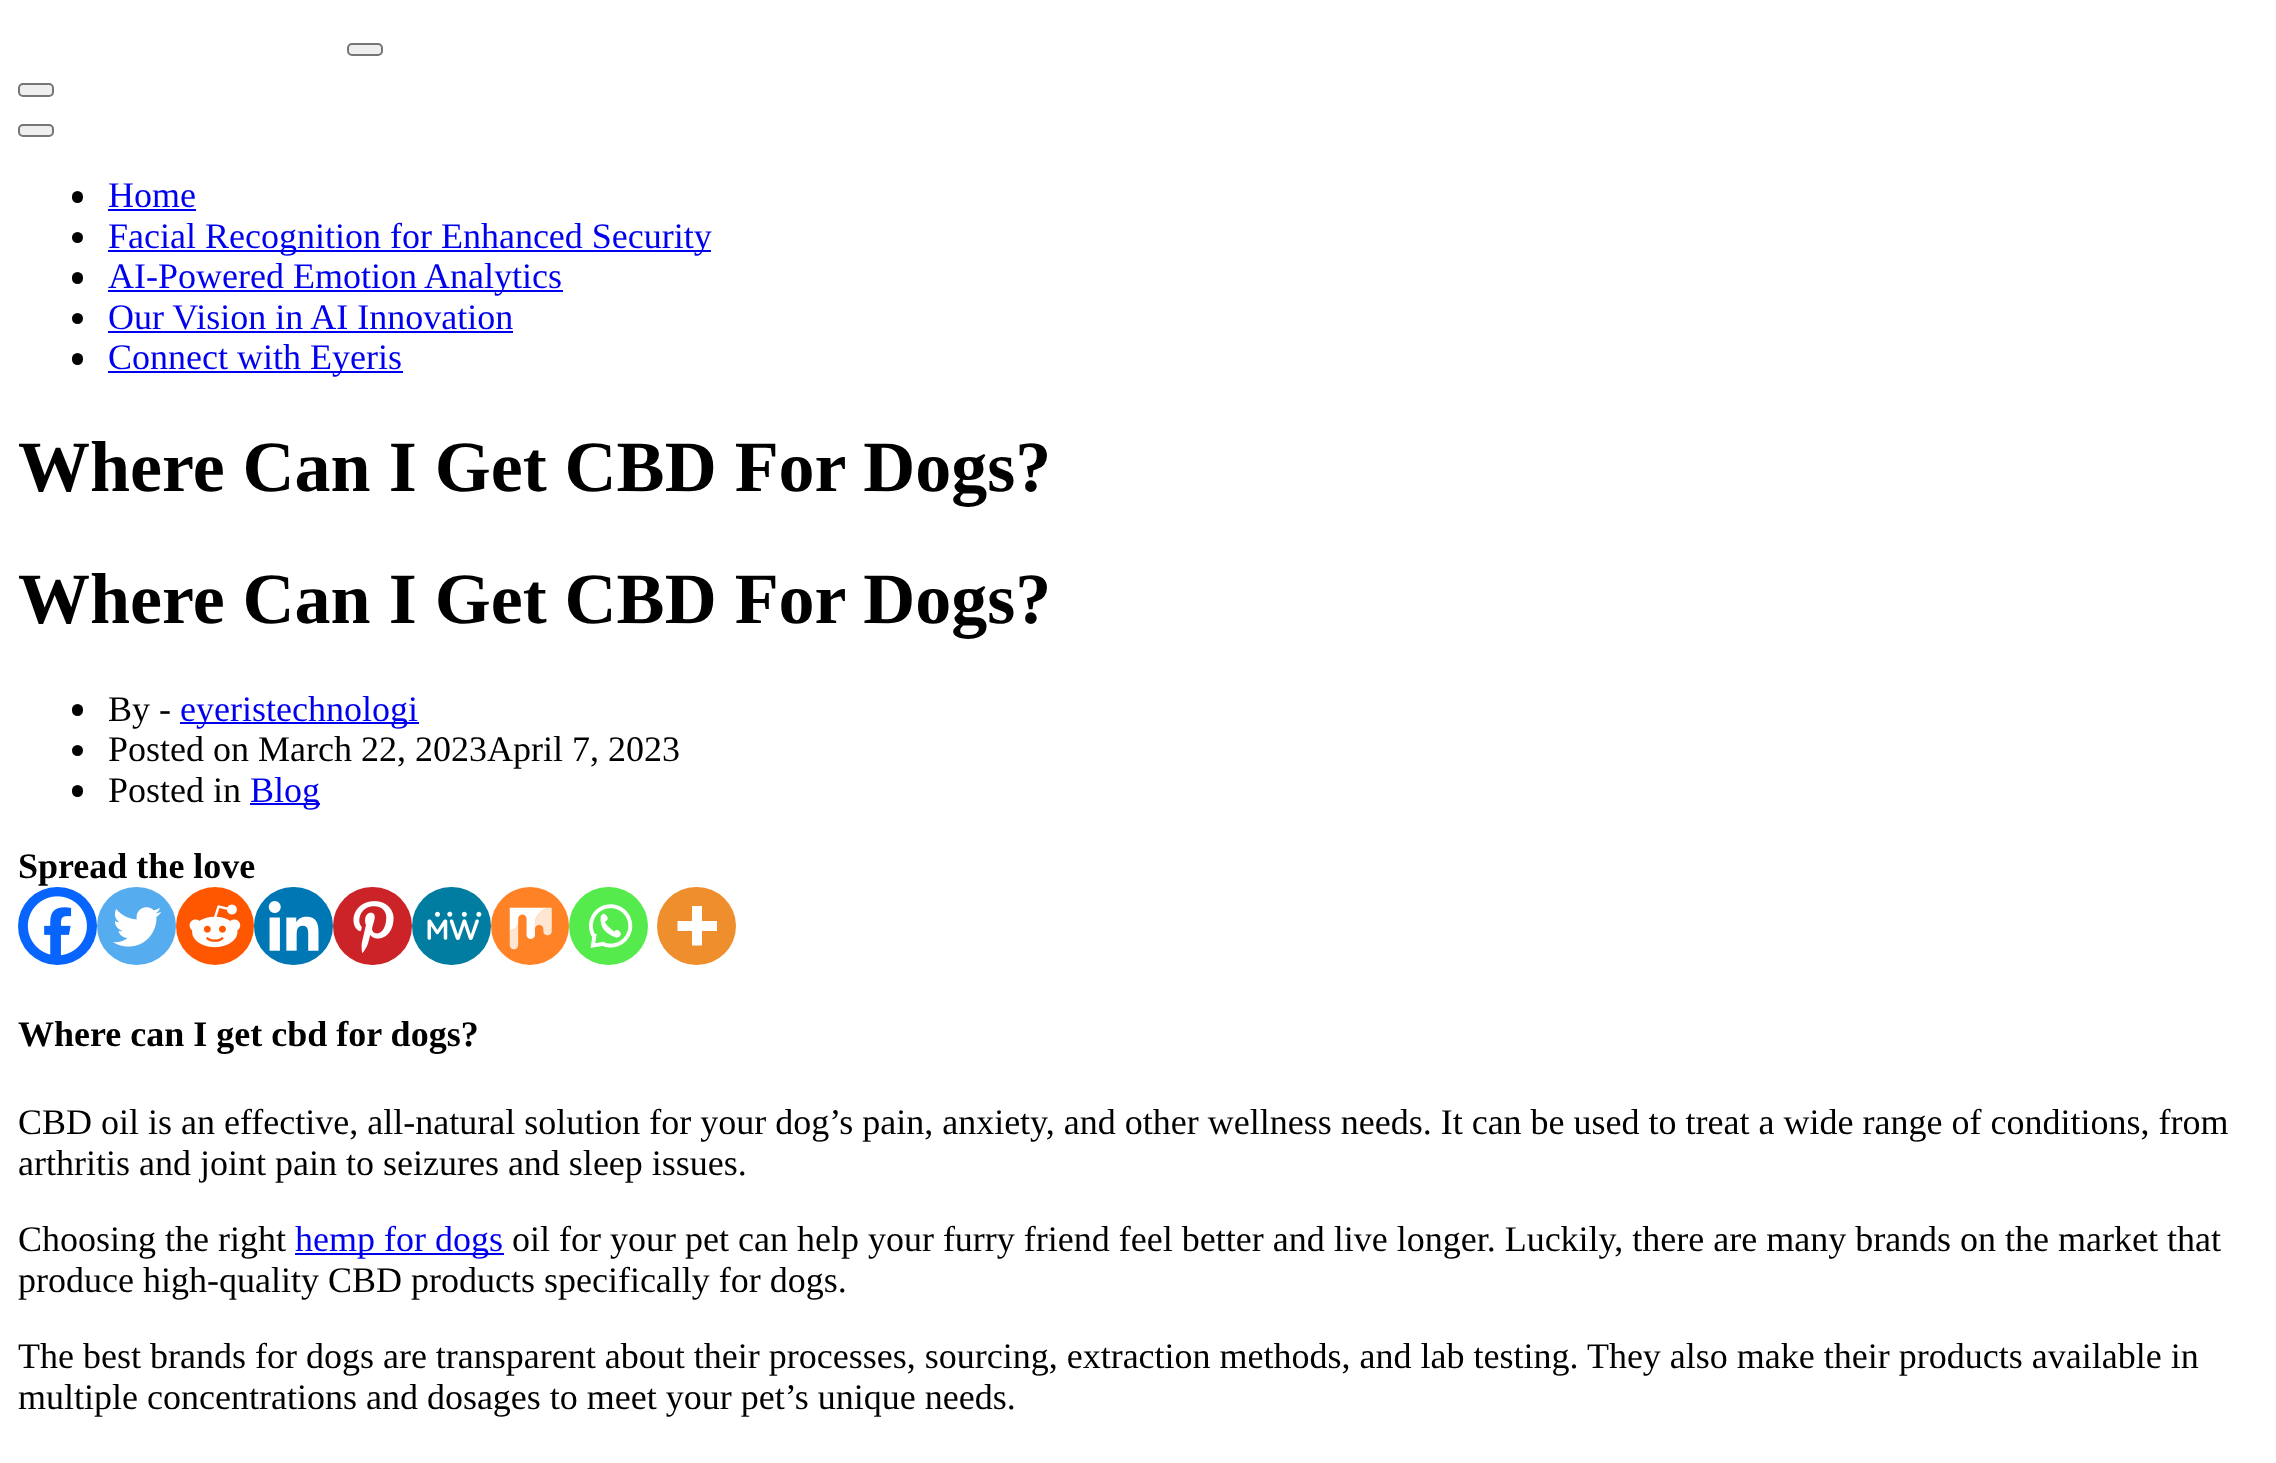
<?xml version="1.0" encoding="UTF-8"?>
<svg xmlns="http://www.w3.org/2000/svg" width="2276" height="1463">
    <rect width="100%" height="100%" fill="#FFFFFF"/>
    <rect x="348" y="44" width="34" height="11" rx="4" fill="#EFEFEF" stroke="#767676" stroke-width="2"/>
    <rect x="19" y="84" width="34" height="12" rx="4" fill="#EFEFEF" stroke="#767676" stroke-width="2"/>
    <rect x="19" y="125" width="34" height="11" rx="4" fill="#EFEFEF" stroke="#767676" stroke-width="2"/>
    <rect x="72" y="191" width="11" height="12" rx="5.5" fill="#000000"/>
    <text x="108" y="207" font-family="Liberation Serif" font-size="36" fill="#0000EE">Home</text>
    <rect x="108" y="209" width="88" height="2" fill="#0000EE"/>
    <circle cx="77.5" cy="237.5" r="5.5" fill="#000000"/>
    <rect x="108" y="250" width="603" height="2" fill="#0000EE"/>
    <text x="108" y="248" font-family="Liberation Serif" font-size="36" fill="#0000EE">Facial Recognition for Enhanced Security</text>
    <rect x="72" y="272" width="11" height="12" rx="5.5" fill="#000000"/>
    <rect x="108" y="290" width="455" height="2" fill="#0000EE"/>
    <text x="108" y="288" font-family="Liberation Serif" font-size="36" fill="#0000EE">AI-Powered Emotion Analytics</text>
    <circle cx="77.5" cy="318.5" r="5.5" fill="#000000"/>
    <text x="108" y="329" font-family="Liberation Serif" font-size="36" fill="#0000EE">Our Vision in AI Innovation</text>
    <rect x="108" y="331" width="405" height="2" fill="#0000EE"/>
    <rect x="72" y="353" width="11" height="12" rx="5.5" fill="#000000"/>
    <rect x="108" y="371" width="295" height="2" fill="#0000EE"/>
    <text x="108" y="369" font-family="Liberation Serif" font-size="36" fill="#0000EE">Connect with Eyeris</text>
    <text font-family="Liberation Serif" font-size="72" font-weight="700" fill="#000000">
        <tspan x="18" y="491">Where Can I Get CBD For Dogs?</tspan>
        <tspan x="18" y="623">Where Can I Get CBD For Dogs?</tspan>
    </text>
    <rect x="72" y="704" width="11" height="12" rx="5.5" fill="#000000"/>
    <text x="108" y="721" font-family="Liberation Serif" font-size="36" fill="#000000">By -</text>
    <rect x="180" y="722" width="239" height="2" fill="#0000EE"/>
    <text x="180" y="721" font-family="Liberation Serif" font-size="36" fill="#0000EE">eyeristechnologi</text>
    <circle cx="77.5" cy="750.5" r="5.5" fill="#000000"/>
    <text x="108" y="761" font-family="Liberation Serif" font-size="36" fill="#000000">Posted on March 22, 2023April 7, 2023</text>
    <rect x="72" y="785" width="11" height="12" rx="5.5" fill="#000000"/>
    <text x="108" y="802" font-family="Liberation Serif" font-size="36" fill="#000000">Posted in</text>
    <rect x="250" y="803" width="70" height="2" fill="#0000EE"/>
    <text x="250" y="802" font-family="Liberation Serif" font-size="36" fill="#0000EE">Blog</text>
    <text x="18" y="878" font-family="Liberation Serif" font-size="36" font-weight="700" fill="#000000">Spread the love</text>
    <rect x="18" y="887" width="79" height="78" rx="39" fill="#0765FE"/>
    <image x="27" y="896" width="60" height="60" href="img_01.png"/>
    <rect x="97" y="887" width="79" height="78" rx="39" fill="#55ACEE"/>
    <image x="113" y="907" width="49" height="40" href="img_02.png"/>
    <circle cx="215" cy="926" r="39" fill="#FF5700"/>
    <image x="189" y="904" width="52" height="44" href="img_03.png"/>
    <rect x="254" y="887" width="79" height="78" rx="39" fill="#0077B5"/>
    <image x="268" y="901" width="51" height="50" href="img_04.png"/>
    <rect x="333" y="887" width="79" height="78" rx="39" fill="#CC2329"/>
    <image x="353" y="901" width="41" height="52" href="img_05.png"/>
    <rect x="412" y="887" width="79" height="78" rx="39" fill="#007DA1"/>
    <image x="427" y="911" width="55" height="29" href="img_06.png"/>
    <circle cx="530" cy="926" r="39" fill="#FF8226"/>
    <image x="509" y="907" width="43" height="43" href="img_07.png"/>
    <rect x="569" y="887" width="79" height="78" rx="39" fill="#55EB4C"/>
    <image x="588" y="904" width="45" height="44" href="img_08.png"/>
    <rect x="657" y="887" width="79" height="78" rx="39" fill="#EE8E2D"/>
    <path d="M 702 921 V 906 H 692 V 921 H 677.5 V 931 H 692 V 945.5 H 702 V 931 H 717 V 921 Z" fill="#FFFFFF" fill-rule="evenodd"/>
    <text x="18" y="1046" font-family="Liberation Serif" font-size="36" font-weight="700" fill="#000000">Where can I get cbd for dogs?</text>
    <text font-family="Liberation Serif" font-size="36" fill="#000000">
        <tspan x="18" y="1134">CBD oil is an effective, all-natural solution for your dog’s pain, anxiety, and other wellness needs. It can be used to treat a wide range of conditions, from</tspan>
        <tspan x="18" y="1175">arthritis and joint pain to seizures and sleep issues.</tspan>
    </text>
    <text x="18" y="1251" font-family="Liberation Serif" font-size="36" fill="#000000">Choosing the right</text>
    <rect x="295" y="1253" width="209" height="2" fill="#0000EE"/>
    <text x="295" y="1251" font-family="Liberation Serif" font-size="36" fill="#0000EE">hemp for dogs</text>
    <text x="512" y="1251" font-family="Liberation Serif" font-size="36" fill="#000000">oil for your pet can help your furry friend feel better and live longer. Luckily, there are many brands on the market that</text>
    <text x="18" y="1292" font-family="Liberation Serif" font-size="36" fill="#000000">produce high-quality CBD products specifically for dogs.</text>
    <text font-family="Liberation Serif" font-size="36" fill="#000000">
        <tspan x="18" y="1368">The best brands for dogs are transparent about their processes, sourcing, extraction methods, and lab testing. They also make their products available in</tspan>
        <tspan x="18" y="1409">multiple concentrations and dosages to meet your pet’s unique needs.</tspan>
    </text>
</svg>
